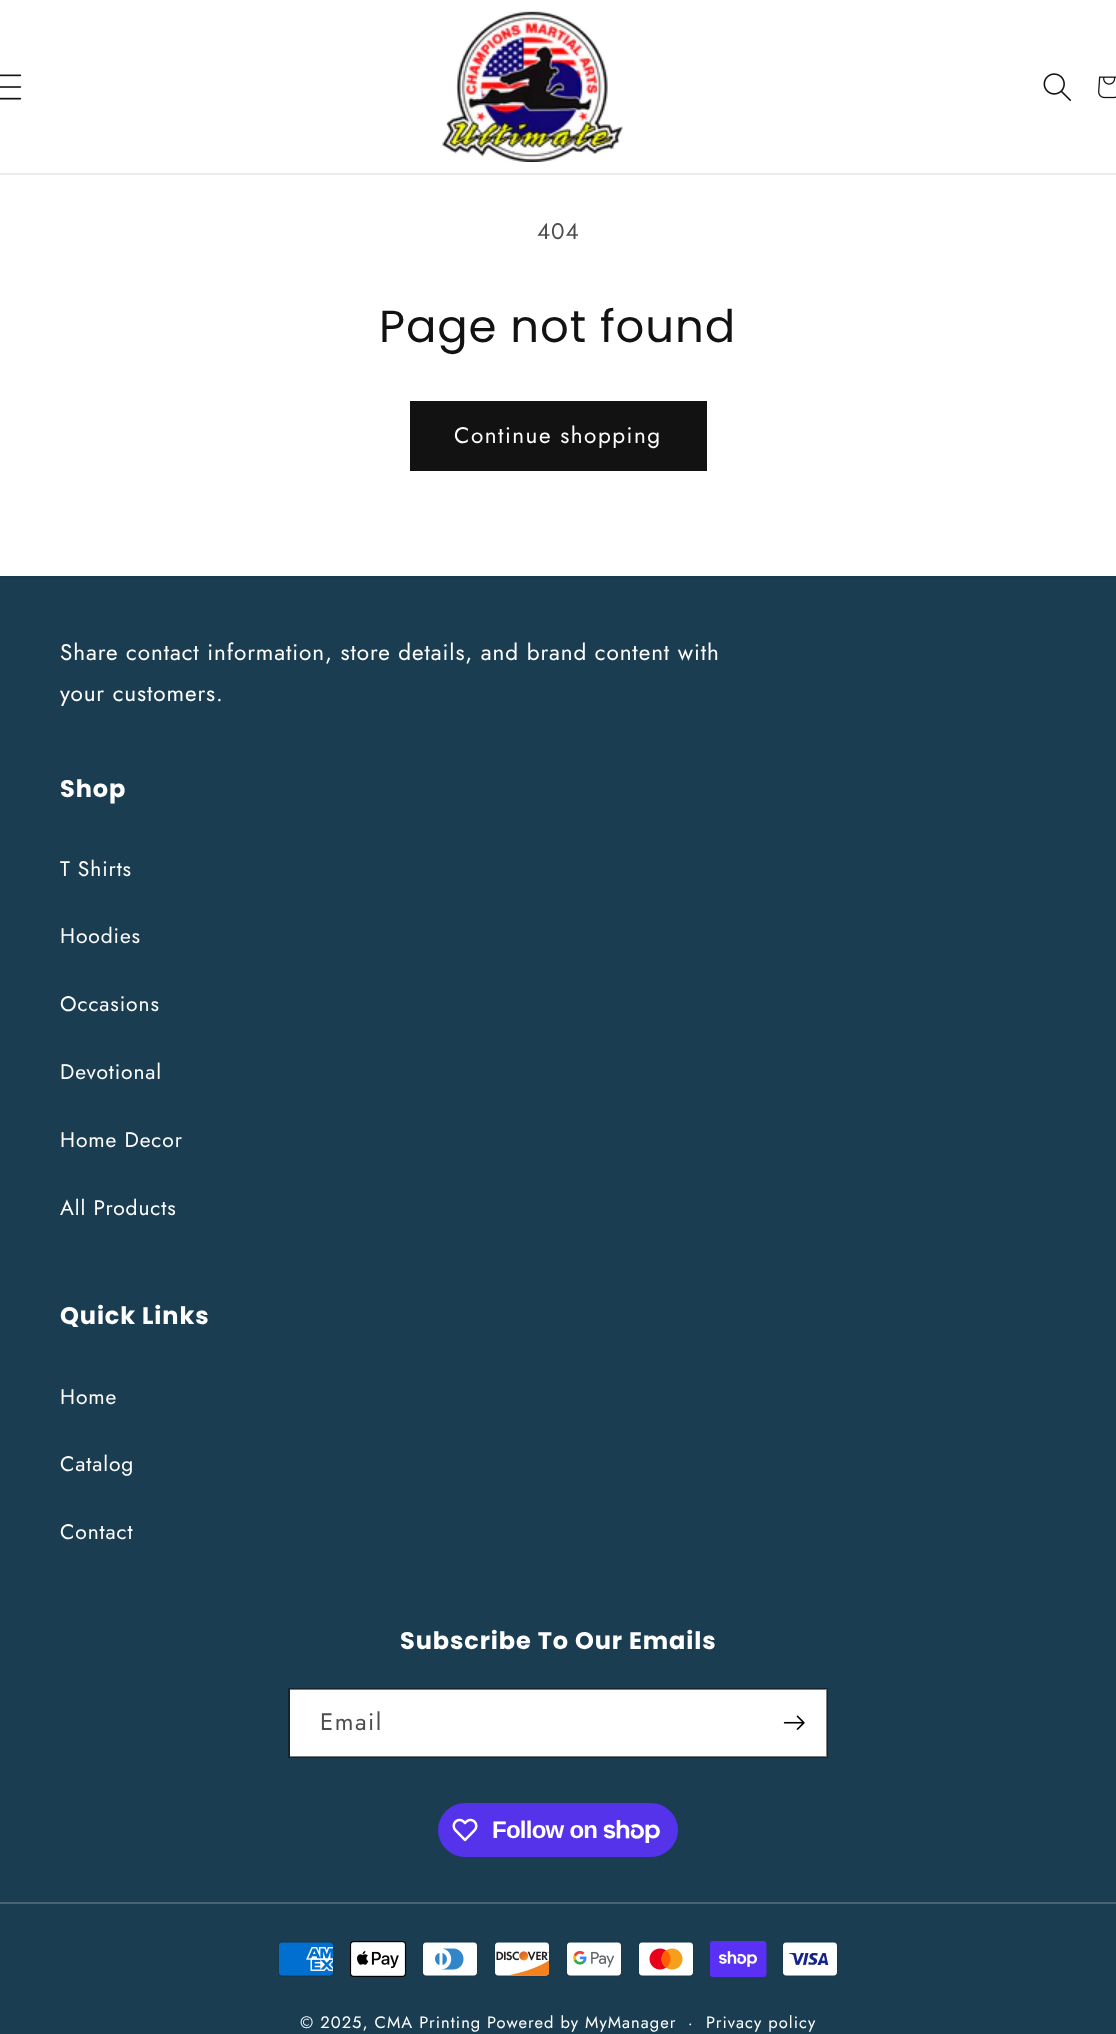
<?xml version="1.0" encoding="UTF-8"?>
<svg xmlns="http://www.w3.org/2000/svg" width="1116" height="2034">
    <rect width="100%" height="100%" fill="#FFFFFF"/>
    <rect x="0" y="173" width="1116" height="2" fill="#ECECEC"/>
    <image x="0" y="74" width="22" height="26" href="img_01.png"/>
    <image x="442" y="11" width="181" height="151" href="img_02.png"/>
    <image x="1043" y="73" width="28" height="28" href="img_03.png"/>
    <image x="1098" y="76" width="18" height="23" href="img_04.png"/>
    <text x="537" y="239" font-family="Jost" font-size="22.5" letter-spacing="0.9" fill="#4D4D4D">404</text>
    <text x="379" y="342" font-family="Poppins" font-size="45" letter-spacing="0.9" fill="#121212">Page not found</text>
    <rect x="410" y="401" width="297" height="70" fill="#121212"/>
    <text x="454" y="443" font-family="Jost" font-size="22.5" letter-spacing="1.5" fill="#FFFFFF">Continue shopping</text>
    <rect x="0" y="578" width="1116" height="1456" fill="#1A3D51"/>
    <rect x="0" y="576" width="1116" height="2" fill="#193A4C"/>
    <text font-family="Jost" font-size="22.5" letter-spacing="0.9" fill="#FFFFFF">
        <tspan x="60" y="660">Share contact information, store details, and brand content with</tspan>
        <tspan x="60" y="701">your customers.</tspan>
    </text>
    <text x="60" y="797" font-family="Poppins" font-size="24" font-weight="700" letter-spacing="0.9" fill="#FFFFFF">Shop</text>
    <text x="60" y="876" font-family="Jost" font-size="21" letter-spacing="0.9" fill="#FFFFFF">T Shirts</text>
    <text x="60" y="943" font-family="Jost" font-size="21" letter-spacing="0.9" fill="#FFFFFF">Hoodies</text>
    <text x="60" y="1011" font-family="Jost" font-size="21" letter-spacing="0.9" fill="#FFFFFF">Occasions</text>
    <text x="60" y="1079" font-family="Jost" font-size="21" letter-spacing="0.9" fill="#FFFFFF">Devotional</text>
    <text x="60" y="1147" font-family="Jost" font-size="21" letter-spacing="0.9" fill="#FFFFFF">Home Decor</text>
    <text x="60" y="1215" font-family="Jost" font-size="21" letter-spacing="0.9" fill="#FFFFFF">All Products</text>
    <text x="60" y="1324" font-family="Poppins" font-size="24" font-weight="700" letter-spacing="0.9" fill="#FFFFFF">Quick Links</text>
    <text x="60" y="1404" font-family="Jost" font-size="21" letter-spacing="0.9" fill="#FFFFFF">Home</text>
    <text x="60" y="1471" font-family="Jost" font-size="21" letter-spacing="0.9" fill="#FFFFFF">Catalog</text>
    <text x="60" y="1539" font-family="Jost" font-size="21" letter-spacing="0.9" fill="#FFFFFF">Contact</text>
    <text x="400" y="1649" font-family="Poppins" font-size="24" font-weight="700" letter-spacing="0.9" fill="#FFFFFF">Subscribe To Our Emails</text>
    <rect x="290" y="1689" width="537" height="68" fill="#FFFFFF"/>
    <rect x="289" y="1689" width="538" height="68" fill="none" stroke="#121212" stroke-opacity="0.55" stroke-width="2"/>
    <text x="320" y="1730" font-family="Jost" font-size="24" letter-spacing="1.5" fill="#4D4D4D">Email</text>
    <image x="783" y="1715" width="22" height="15" href="img_05.png"/>
    <rect x="438" y="1803" width="240" height="54" rx="27" fill="#5433EB"/>
    <image x="452" y="1818" width="26" height="24" href="img_06.png"/>
    <text x="492" y="1838" font-family="Liberation Sans" font-size="24" font-weight="700" letter-spacing="-0.75" fill="#FFFFFF">Follow on</text>
    <image x="603" y="1820" width="57" height="23" href="img_07.png"/>
    <rect x="0" y="1902" width="1116" height="2" fill="#486474"/>
    <image x="278" y="1941" width="56" height="36" href="img_08.png"/>
    <image x="350" y="1941" width="57" height="36" href="img_09.png"/>
    <image x="422" y="1941" width="56" height="36" href="img_10.png"/>
    <image x="494" y="1941" width="56" height="36" href="img_11.png"/>
    <image x="566" y="1941" width="56" height="36" href="img_12.png"/>
    <image x="638" y="1941" width="56" height="36" href="img_13.png"/>
    <image x="710" y="1941" width="57" height="36" href="img_14.png"/>
    <image x="782" y="1941" width="56" height="36" href="img_15.png"/>
    <text x="300" y="2028" font-family="Jost" font-size="16.5" letter-spacing="1.05" fill="#FFFFFF">© 2025, CMA Printing</text>
    <text x="487" y="2028" font-family="Jost" font-size="16.5" letter-spacing="1.05" fill="#FFFFFF">Powered by MyManager</text>
    <text x="688" y="2028" font-family="Jost" font-size="15" letter-spacing="1.05" fill="#FFFFFF">·</text>
    <text x="706" y="2028" font-family="Jost" font-size="16.5" letter-spacing="1.05" fill="#FFFFFF">Privacy policy</text>
</svg>
